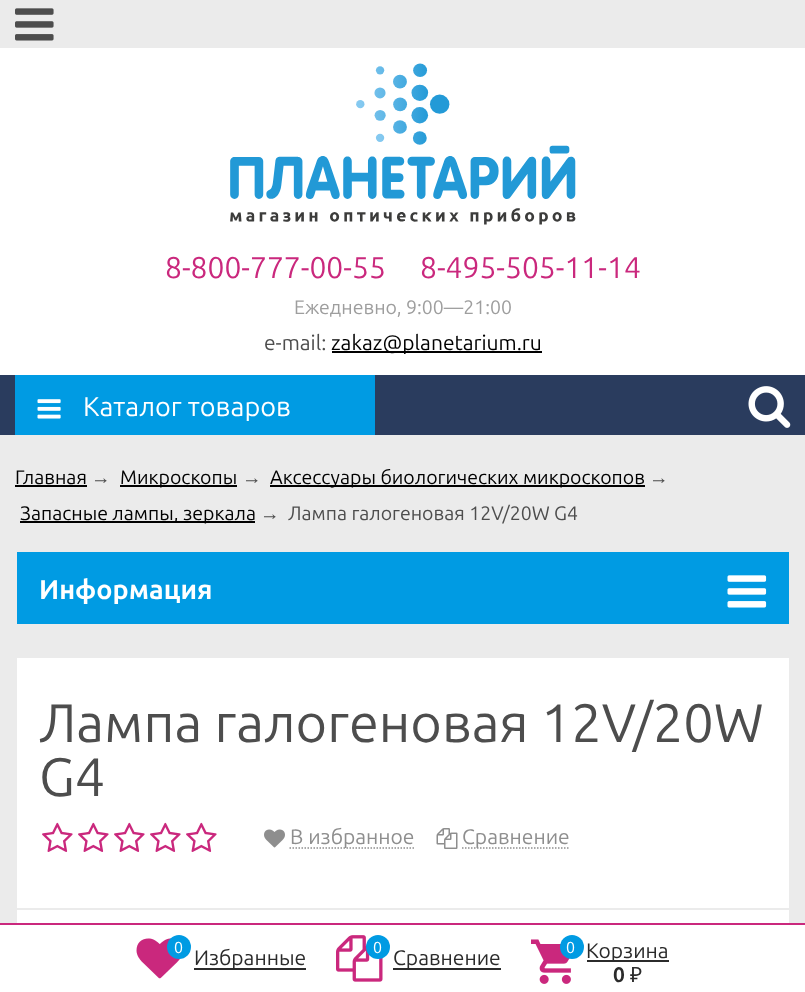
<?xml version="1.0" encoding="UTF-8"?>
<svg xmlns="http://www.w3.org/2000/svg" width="805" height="992">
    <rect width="100%" height="100%" fill="#EBEBEB"/>
    <image x="15" y="8" width="39" height="33" href="img_01.png"/>
    <rect x="0" y="48" width="805" height="327" fill="#FFFFFF"/>
    <image x="230" y="63" width="346" height="162" href="img_02.png"/>
    <text x="165" y="278" font-family="Ubuntu" font-size="30" fill="#CA287D">8-800-777-00-55</text>
    <text x="420" y="278" font-family="Ubuntu" font-size="30" fill="#CA287D">8-495-505-11-14</text>
    <text x="294" y="314" font-family="Ubuntu" font-size="19.5" fill="#9E9E9E">Ежедневно, 9:00—21:00</text>
    <text x="264" y="350" font-family="Ubuntu" font-size="21" fill="#4D4D4D">e-mail:</text>
    <rect x="332" y="351" width="210" height="2" fill="#000000"/>
    <text x="331" y="350" font-family="Ubuntu" font-size="21" fill="#000000">zakaz@planetarium.ru</text>
    <rect x="0" y="375" width="805" height="60" fill="#2A3C5E"/>
    <rect x="15" y="375" width="360" height="60" fill="#009BE3"/>
    <image x="37" y="399" width="24" height="20" href="img_03.png"/>
    <text x="83" y="416" font-family="Ubuntu" font-size="27" fill="#FFFFFF">Каталог товаров</text>
    <image x="748" y="386" width="43" height="42" href="img_04.png"/>
    <text x="15" y="484" font-family="Ubuntu" font-size="19.5" fill="#000000">Главная</text>
    <rect x="15" y="485" width="72" height="2" fill="#000000"/>
    <text x="91" y="484" font-family="Liberation Sans" font-size="19.5" fill="#4D4D4D">→</text>
    <rect x="120" y="485" width="117" height="2" fill="#000000"/>
    <text x="120" y="484" font-family="Ubuntu" font-size="19.5" fill="#000000">Микроскопы</text>
    <text x="242" y="484" font-family="Liberation Sans" font-size="19.5" fill="#4D4D4D">→</text>
    <rect x="270" y="485" width="375" height="2" fill="#000000"/>
    <text x="270" y="484" font-family="Ubuntu" font-size="19.5" fill="#000000">Аксессуары биологических микроскопов</text>
    <text x="649" y="484" font-family="Liberation Sans" font-size="19.5" fill="#4D4D4D">→</text>
    <rect x="20" y="521" width="235" height="2" fill="#000000"/>
    <text x="20" y="520" font-family="Ubuntu" font-size="19.5" fill="#000000">Запасные лампы, зеркала</text>
    <text x="260" y="520" font-family="Liberation Sans" font-size="19.5" fill="#4D4D4D">→</text>
    <text x="288" y="520" font-family="Ubuntu" font-size="19.5" fill="#4D4D4D">Лампа галогеновая 12V/20W G4</text>
    <rect x="17" y="552" width="772" height="72" fill="#009BE3"/>
    <text x="39" y="599" font-family="Ubuntu" font-size="27" font-weight="700" fill="#FFFFFF">Информация</text>
    <image x="727" y="575" width="40" height="33" href="img_05.png"/>
    <rect x="17" y="658" width="772" height="265" fill="#FFFFFF"/>
    <rect x="17" y="908" width="772" height="2" fill="#EBEBEB"/>
    <text font-family="Ubuntu" font-size="54" fill="#4D4D4D">
        <tspan x="39" y="742">Лампа галогеновая 12V/20W</tspan>
        <tspan x="39" y="796">G4</tspan>
    </text>
    <image x="42" y="822" width="31" height="30" href="img_06.png"/>
    <image x="78" y="822" width="31" height="30" href="img_06.png"/>
    <image x="114" y="822" width="31" height="30" href="img_06.png"/>
    <image x="150" y="822" width="31" height="30" href="img_06.png"/>
    <image x="186" y="822" width="31" height="30" href="img_06.png"/>
    <image x="264" y="829" width="21" height="19" href="img_07.png"/>
    <path d="M 289.5 848 H 414" fill="none" stroke="#8E8E8E" stroke-width="1.5" stroke-dasharray="1.5 1.5"/>
    <text x="290" y="844" font-family="Ubuntu" font-size="21" fill="#8E8E8E">В избранное</text>
    <image x="436" y="828" width="22" height="21" href="img_08.png"/>
    <path d="M 462 848 H 570" fill="none" stroke="#8E8E8E" stroke-width="1.5" stroke-dasharray="1.5 1.5"/>
    <text x="462" y="844" font-family="Ubuntu" font-size="21" fill="#8E8E8E">Сравнение</text>
    <rect x="0" y="925" width="805" height="67" fill="#FFFFFF"/>
    <rect x="0" y="923" width="805" height="2" fill="#CA287D"/>
    <image x="136" y="938" width="45" height="41" href="img_09.png"/>
    <circle cx="179" cy="947" r="12" fill="#009BE3"/>
    <text x="174" y="953" font-family="Ubuntu" font-size="16" fill="#FFFFFF">0</text>
    <rect x="194" y="968" width="112" height="2" fill="#2B2B2B"/>
    <text x="194" y="965" font-family="Ubuntu" font-size="21" fill="#2B2B2B">Избранные</text>
    <image x="336" y="935" width="47" height="47" href="img_10.png"/>
    <circle cx="378" cy="947" r="12" fill="#009BE3"/>
    <text x="373" y="953" font-family="Ubuntu" font-size="16" fill="#FFFFFF">0</text>
    <rect x="393" y="968" width="108" height="2" fill="#2B2B2B"/>
    <text x="393" y="965" font-family="Ubuntu" font-size="21" fill="#2B2B2B">Сравнение</text>
    <image x="531" y="939" width="40" height="45" href="img_11.png"/>
    <circle cx="572" cy="947" r="12" fill="#009BE3"/>
    <text x="566" y="953" font-family="Ubuntu" font-size="16" fill="#FFFFFF">0</text>
    <rect x="587" y="960" width="82" height="2" fill="#2B2B2B"/>
    <text x="586" y="958" font-family="Ubuntu" font-size="21" fill="#2B2B2B">Корзина</text>
    <text x="613" y="982" font-family="Ubuntu" font-size="21" font-weight="700" fill="#2B2B2B">0</text>
    <text x="630" y="982" font-family="Noto Sans" font-size="21" fill="#2B2B2B">₽</text>
</svg>
